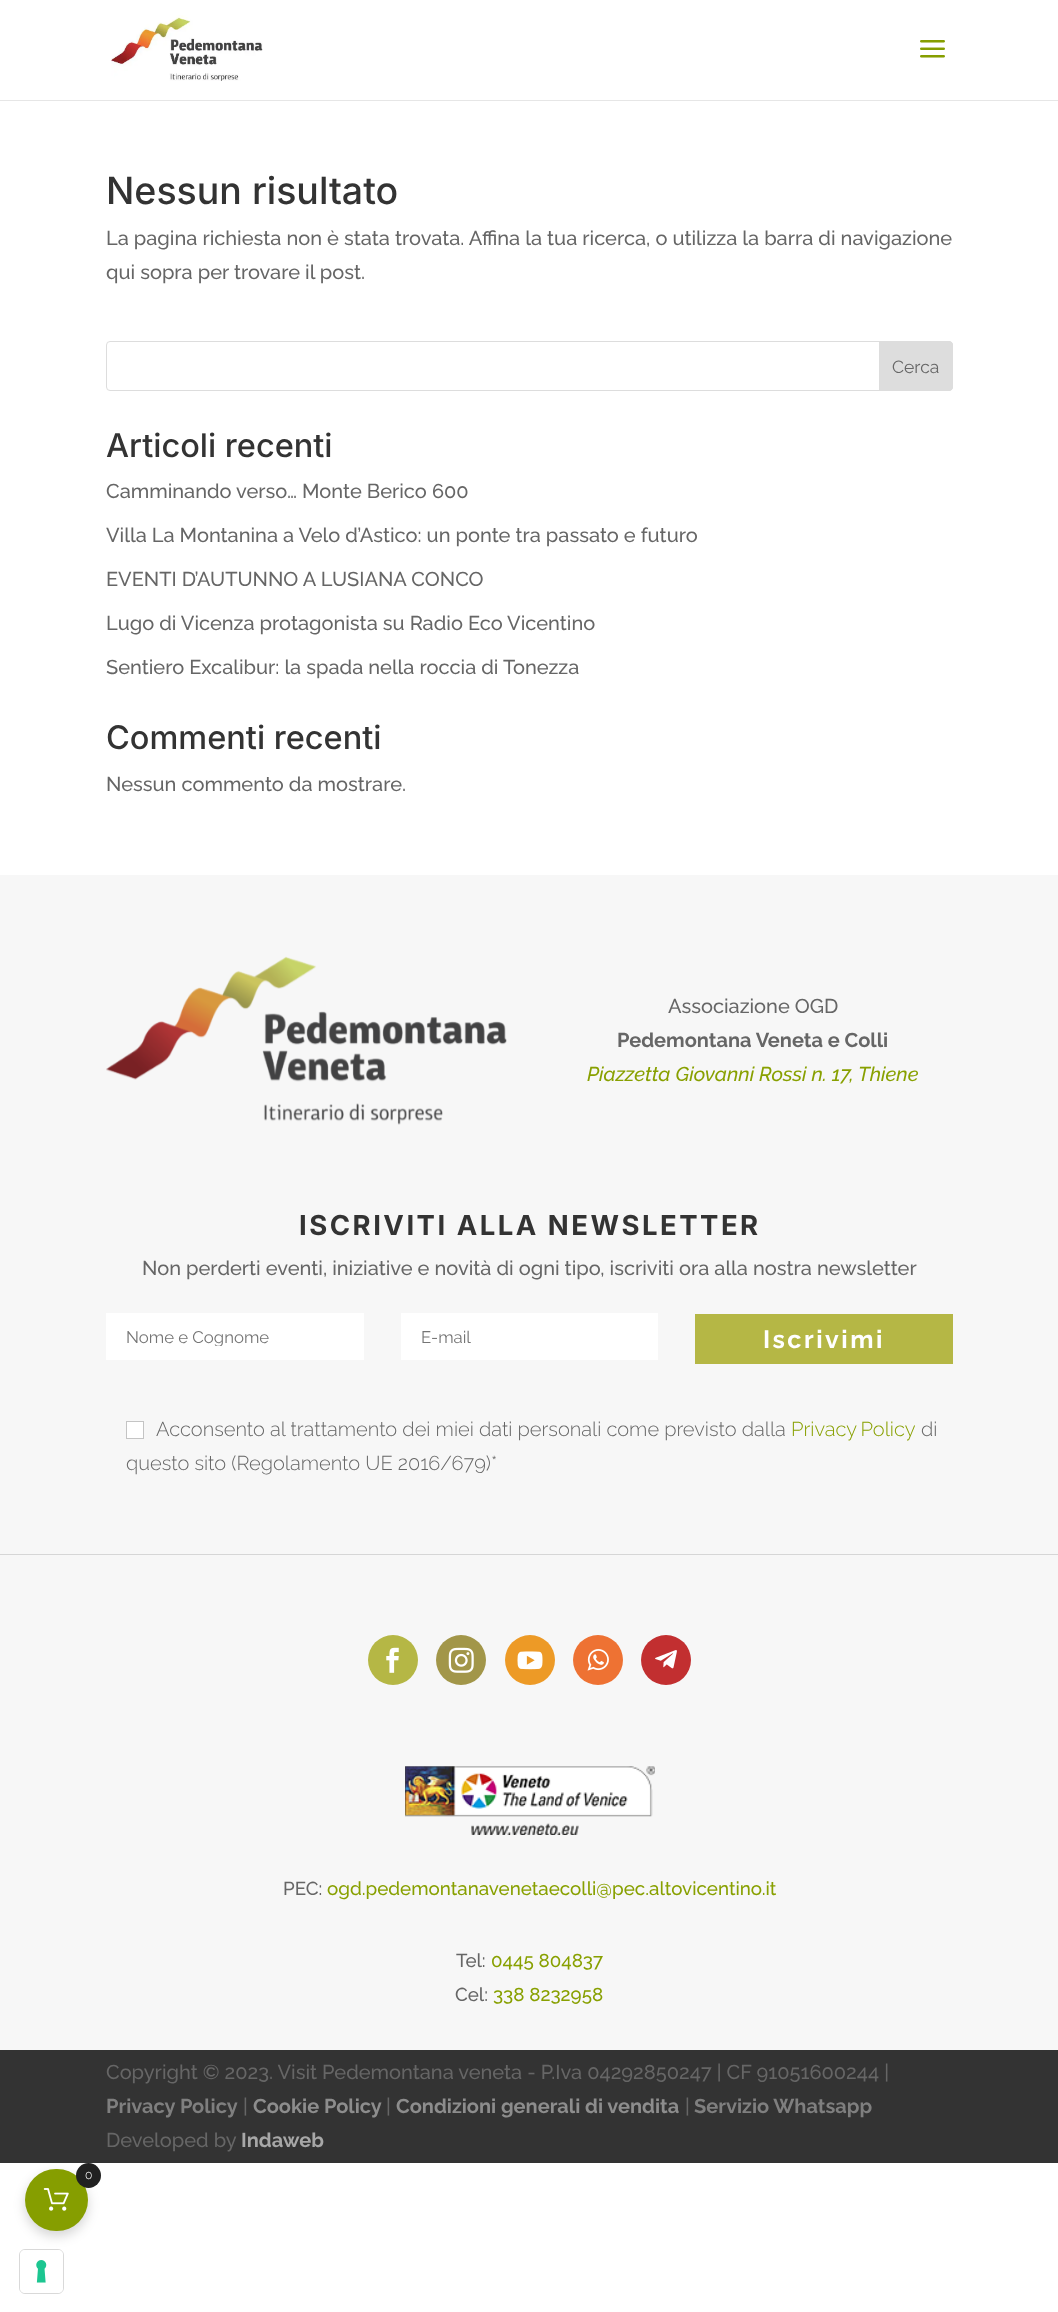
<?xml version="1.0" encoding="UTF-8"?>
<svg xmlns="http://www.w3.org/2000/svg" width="1058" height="2312">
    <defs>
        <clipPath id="clip1"><rect x="126" y="1326" width="218" height="20"/></clipPath>
        <filter id="blur1" x="-50%" y="-200%" width="200%" height="500%"><feGaussianBlur stdDeviation="6"/></filter>
    </defs>
    <rect width="100%" height="100%" fill="#FFFFFF"/>
    <path d="M 0 100 V 101 H 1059 V 1 V 100 Z" fill="#E6E6E6"/>
    <image x="111" y="15" width="152" height="66" href="img_01.png"/>
    <image x="920" y="40" width="25" height="18" href="img_02.png"/>
    <text x="106" y="204" font-family="Inter" font-size="37.5" font-weight="500" fill="#333333">Nessun risultato</text>
    <text font-family="Raleway" font-size="20" font-weight="500" fill="#666666">
        <tspan x="106" y="245">La pagina richiesta non è stata trovata. Affina la tua ricerca, o utilizza la barra di navigazione</tspan>
        <tspan x="106" y="279">qui sopra per trovare il post.</tspan>
    </text>
    <rect x="106.5" y="341.5" width="846" height="49" rx="3.5" fill="none" stroke="#DDDDDD"/>
    <path d="M 879.5 341.5 H 949 C 951 341.5 952.5 343 952.5 345 V 387 C 952.5 389 951 390.5 949 390.5 H 879.5 Z" fill="#DDDDDD" stroke="#DDDDDD"/>
    <text x="892" y="373" font-family="Raleway" font-size="17.5" fill="#666666">Cerca</text>
    <text x="106" y="457" font-family="Inter" font-size="32.5" font-weight="500" fill="#333333">Articoli recenti</text>
    <text x="106" y="498" font-family="Raleway" font-size="20" font-weight="500" fill="#666666">Camminando verso… Monte Berico 600</text>
    <text x="106" y="542" font-family="Raleway" font-size="20" font-weight="500" fill="#666666">Villa La Montanina a Velo d’Astico: un ponte tra passato e futuro</text>
    <text x="106" y="586" font-family="Raleway" font-size="20" font-weight="500" fill="#666666">EVENTI D’AUTUNNO A LUSIANA CONCO</text>
    <text x="106" y="630" font-family="Raleway" font-size="20" font-weight="500" fill="#666666">Lugo di Vicenza protagonista su Radio Eco Vicentino</text>
    <text x="106" y="674" font-family="Raleway" font-size="20" font-weight="500" fill="#666666">Sentiero Excalibur: la spada nella roccia di Tonezza</text>
    <text x="106" y="749" font-family="Inter" font-size="32.5" font-weight="500" fill="#333333">Commenti recenti</text>
    <text x="106" y="791" font-family="Raleway" font-size="20" font-weight="500" fill="#666666">Nessun commento da mostrare.</text>
    <rect x="0" y="875" width="1058" height="679" fill="#F7F7F7"/>
    <image x="106" y="956" width="401" height="169" href="img_03.png"/>
    <text x="668" y="1013" font-family="Raleway" font-size="20" font-weight="500" fill="#666666">Associazione OGD</text>
    <text x="617" y="1047" font-family="Raleway" font-size="20" font-weight="700" fill="#666666">Pedemontana Veneta e Colli</text>
    <text x="587" y="1081" font-family="Raleway" font-size="20" font-weight="500" font-style="italic" fill="#88A000">Piazzetta Giovanni Rossi n. 17, Thiene</text>
    <text x="299" y="1235" font-family="Inter" font-size="27.5" font-weight="700" letter-spacing="2.5" fill="#333333">ISCRIVITI ALLA NEWSLETTER</text>
    <text x="142" y="1275" font-family="Raleway" font-size="20" font-weight="500" fill="#666666">Non perderti eventi, iniziative e novità di ogni tipo, iscriviti ora alla nostra newsletter</text>
    <rect x="106" y="1313" width="258" height="47" fill="#FFFFFF"/>
    <g clip-path="url(#clip1)">
        <text x="126" y="1343" font-family="Raleway" font-size="16.75" fill="#757575">Nome e Cognome</text>
    </g>
    <rect x="401" y="1313" width="257" height="47" fill="#FFFFFF"/>
    <text x="421" y="1343" font-family="Raleway" font-size="16.75" fill="#757575">E-mail</text>
    <rect x="695" y="1314" width="258" height="50" fill="#B5B745"/>
    <text x="763" y="1348" font-family="Raleway" font-size="25" font-weight="700" letter-spacing="2.5" fill="#FFFFFF">Iscrivimi</text>
    <rect x="126.5" y="1421.5" width="17" height="17" fill="#FFFFFF" stroke="#C4C4C4"/>
    <text x="156" y="1436" font-family="Raleway" font-size="20" font-weight="300" fill="#666666">Acconsento al trattamento dei miei dati personali come previsto dalla</text>
    <text x="791" y="1436" word-spacing="-1" font-family="Raleway" font-size="20" font-weight="300" fill="#88A000">Privacy Policy</text>
    <text x="921" y="1436" font-family="Raleway" font-size="20" font-weight="300" fill="#666666">di</text>
    <text x="126" y="1470" font-family="Raleway" font-size="20" font-weight="300" fill="#666666">questo sito (Regolamento UE 2016/679)*</text>
    <rect x="0" y="1555" width="1058" height="495" fill="#F7F7F7"/>
    <rect x="0" y="1554" width="1058" height="1" fill="#D6D6D6"/>
    <circle cx="393" cy="1660" r="25" fill="#B5B745"/>
    <image x="386" y="1647" width="13" height="26" href="img_04.png"/>
    <circle cx="461" cy="1660" r="25" fill="#A29649"/>
    <image x="448" y="1647" width="26" height="26" href="img_05.png"/>
    <circle cx="530" cy="1660" r="25" fill="#ED9A26"/>
    <image x="517" y="1651" width="26" height="19" href="img_06.png"/>
    <circle cx="598" cy="1660" r="25" fill="#EE7233"/>
    <image x="587" y="1649" width="22" height="22" href="img_07.png"/>
    <circle cx="666" cy="1660" r="25" fill="#C22F30"/>
    <image x="655" y="1650" width="22" height="19" href="img_08.png"/>
    <image x="405" y="1766" width="250" height="69" href="img_09.png"/>
    <text x="283" y="1895" font-family="Raleway" font-size="18.75" font-weight="500" fill="#666666">PEC:</text>
    <text x="327" y="1895" font-family="Raleway" font-size="18.75" font-weight="500" fill="#88A000">ogd.pedemontanavenetaecolli@pec.altovicentino.it</text>
    <text x="456" y="1967" font-family="Raleway" font-size="18.75" font-weight="500" fill="#666666">Tel:</text>
    <text x="491" y="1967" font-family="Raleway" font-size="18.75" font-weight="500" fill="#88A000">0445 804837</text>
    <text x="455" y="2001" font-family="Raleway" font-size="18.75" font-weight="500" fill="#666666">Cel:</text>
    <text x="493" y="2001" font-family="Raleway" font-size="18.75" font-weight="500" fill="#88A000">338 8232958</text>
    <rect x="0" y="2050" width="1058" height="113" fill="#333333"/>
    <text x="106" y="2079" font-family="Raleway" font-size="20" font-weight="500" fill="#666666">Copyright © 2023. Visit Pedemontana veneta - P.Iva 04292850247 | CF 91051600244 |</text>
    <text x="106" y="2113" font-family="Raleway" font-size="20" font-weight="700" fill="#7F7F7F">Privacy Policy</text>
    <text x="243" y="2113" font-family="Raleway" font-size="20" font-weight="500" fill="#666666">|</text>
    <text x="253" y="2113" font-family="Raleway" font-size="20" font-weight="700" fill="#8D8D8D">Cookie Policy</text>
    <text x="386" y="2113" font-family="Raleway" font-size="20" font-weight="500" fill="#666666">|</text>
    <text x="396" y="2113" font-family="Raleway" font-size="20" font-weight="700" fill="#8D8D8D">Condizioni generali di vendita</text>
    <text x="685" y="2113" font-family="Raleway" font-size="20" font-weight="500" fill="#666666">|</text>
    <text x="694" y="2113" font-family="Raleway" font-size="20" font-weight="700" fill="#7F7F7F">Servizio Whatsapp</text>
    <text x="106" y="2147" font-family="Raleway" font-size="20" font-weight="500" fill="#666666">Developed by</text>
    <text x="241" y="2147" font-family="Raleway" font-size="20" font-weight="700" fill="#A7A7A7">Indaweb</text>
    <rect x="25" y="2174" width="63" height="62" rx="31" fill="#000000" fill-opacity="0.17" filter="url(#blur1)"/>
    <rect x="25" y="2169" width="63" height="62" rx="31" fill="#869E00"/>
    <circle cx="88.5" cy="2175.5" r="12.5" fill="#212121"/>
    <text x="85" y="2179" font-family="Raleway" font-size="12" font-weight="300" fill="#FFFFFF">0</text>
    <image x="43" y="2188" width="26" height="23" href="img_10.png"/>
    <rect x="19.5" y="2249.5" width="44" height="44" rx="5.5" fill="none" stroke="#D9D9D9"/>
    <rect x="20" y="2250" width="43" height="43" rx="5" fill="#FFFFFF"/>
    <image x="36" y="2260" width="11" height="23" href="img_11.png"/>
</svg>
